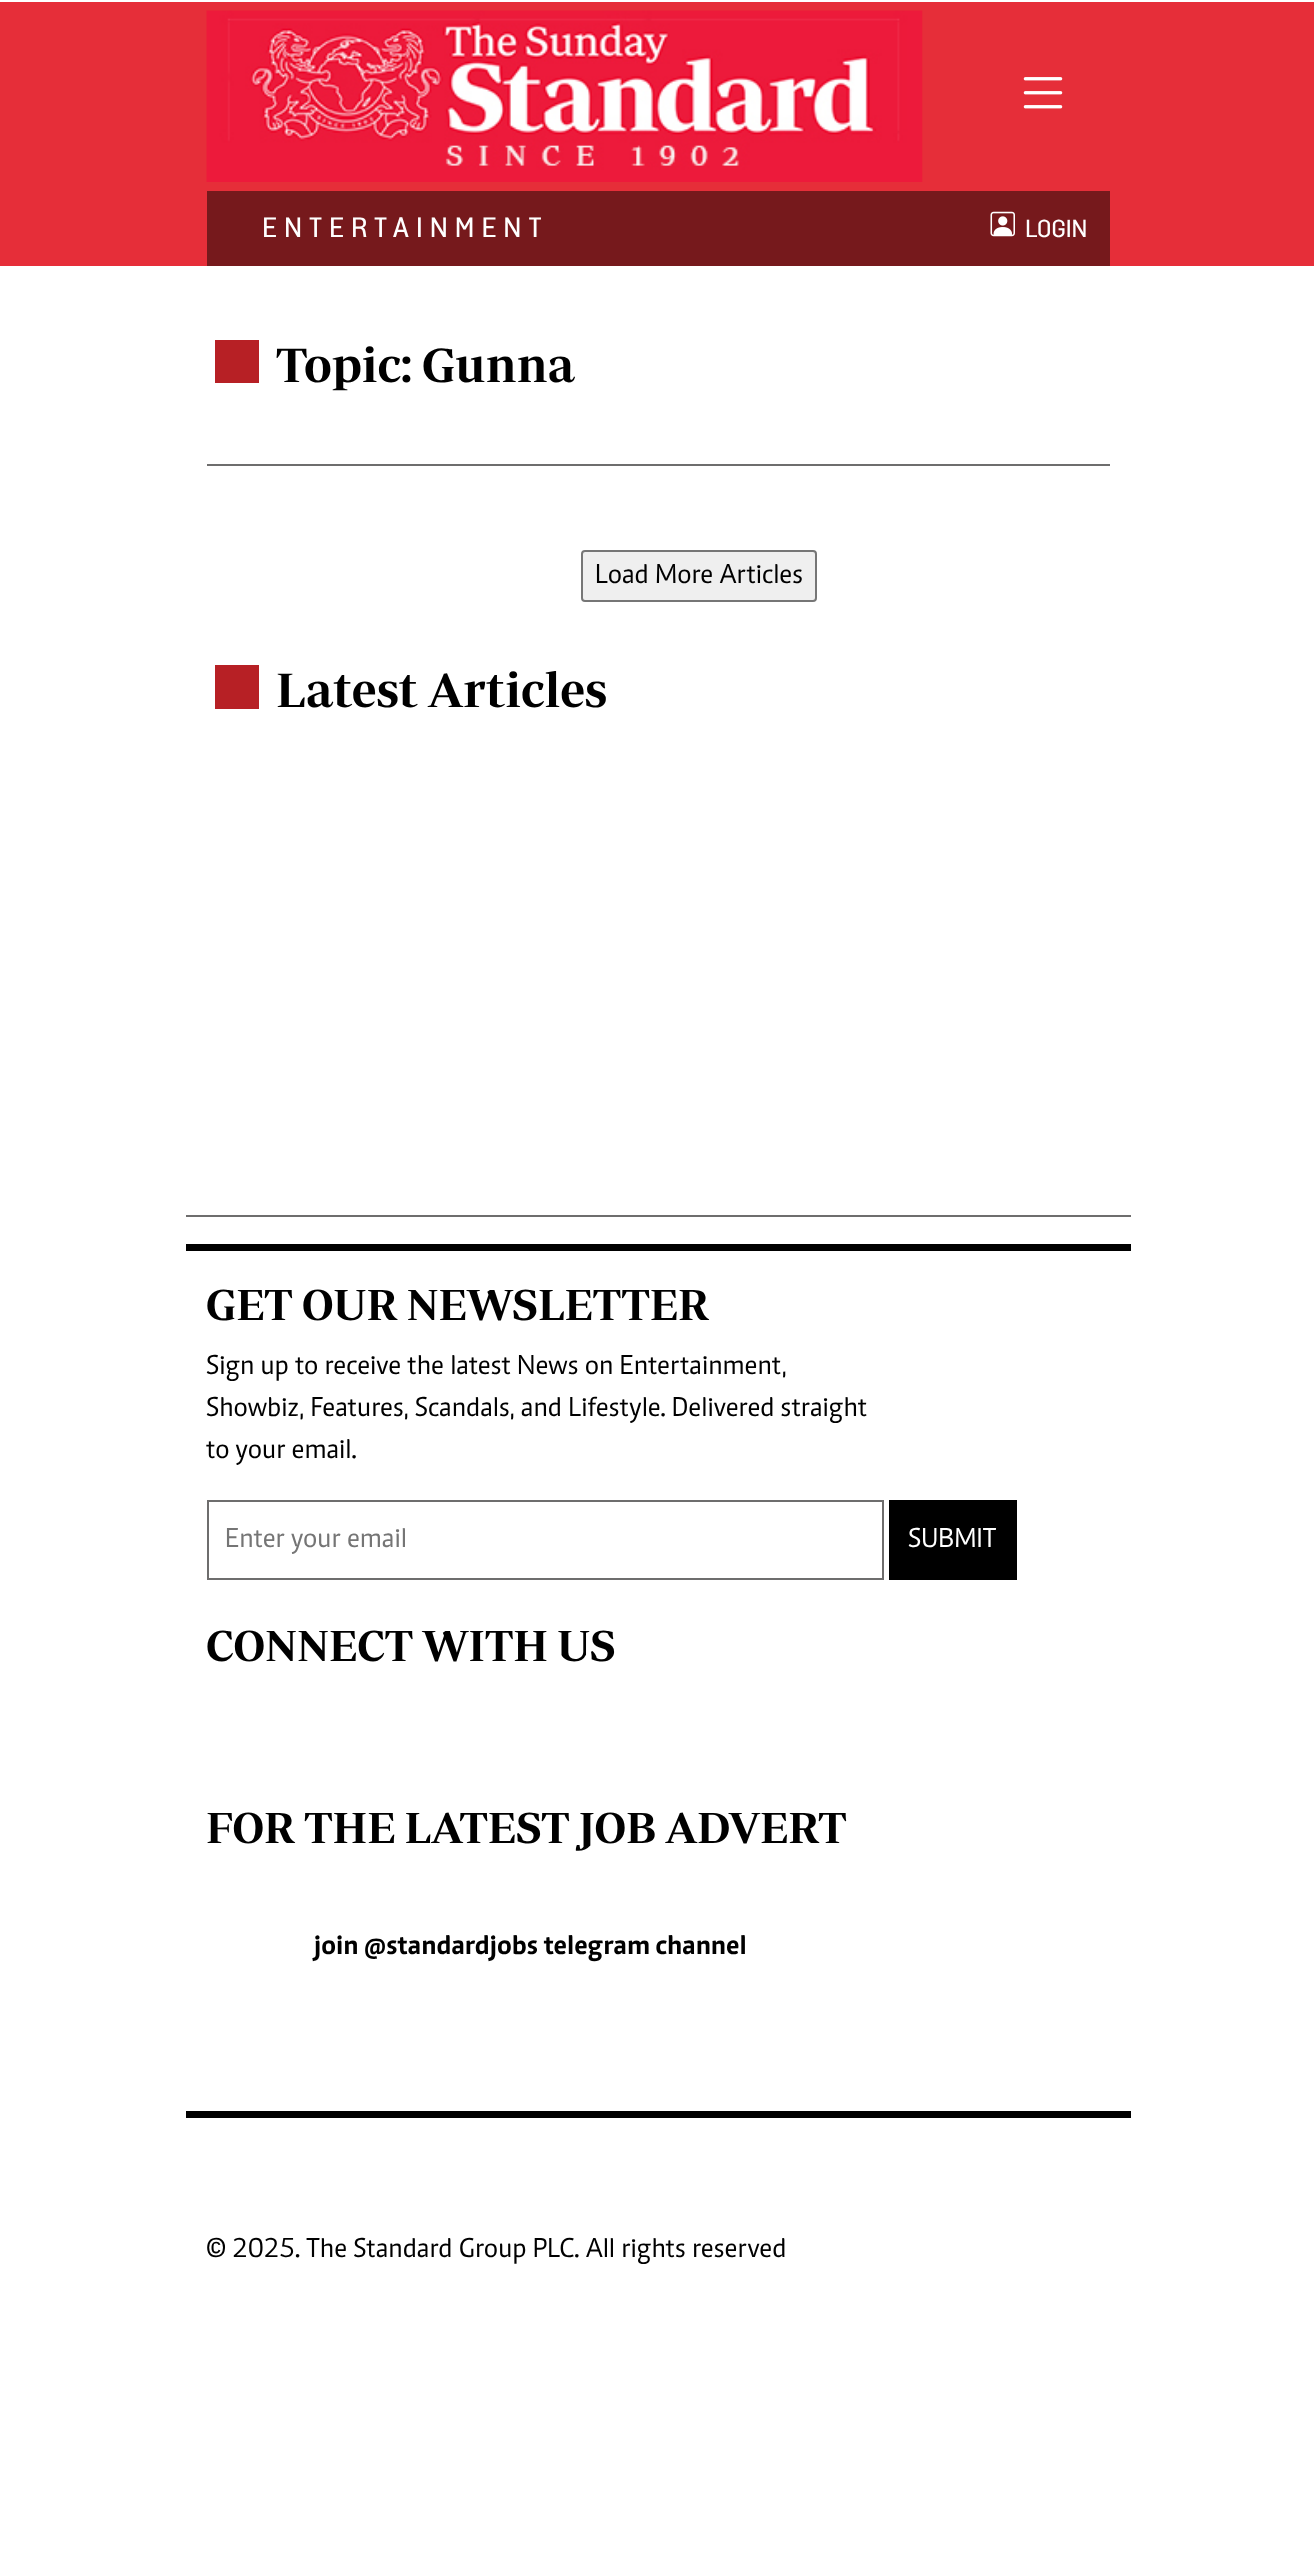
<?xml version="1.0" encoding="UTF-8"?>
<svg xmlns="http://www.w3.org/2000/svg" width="1314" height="2572">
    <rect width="100%" height="100%" fill="#FFFFFF"/>
    <rect x="0" y="2" width="1314" height="264" fill="#E62E39"/>
    <image x="206" y="10" width="717" height="172" href="img_01.png"/>
    <image x="1023" y="77" width="40" height="32" href="img_02.png"/>
    <rect x="207" y="191" width="903" height="75" fill="#76191C"/>
    <text x="262" y="237" font-family="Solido" font-size="28" font-weight="500" letter-spacing="7" fill="#FFFFFF">ENTERTAINMENT</text>
    <image x="990" y="211" width="25" height="26" href="img_03.png"/>
    <text x="1025" y="237" font-family="Solido" font-size="24.5" font-weight="500" fill="#FFFFFF">LOGIN</text>
    <rect x="215" y="340" width="44" height="43" fill="#B72025"/>
    <text x="276" y="382" font-family="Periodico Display" font-size="49" font-weight="600" fill="#000000">Topic: Gunna</text>
    <rect x="207" y="464" width="903" height="2" fill="#6E6D6D"/>
    <rect x="582" y="551" width="234" height="50" rx="3" fill="#EFEFEF" stroke="#767676" stroke-width="2"/>
    <text x="595" y="583" font-family="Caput" font-size="28" fill="#000000">Load More Articles</text>
    <rect x="186" y="1215" width="945" height="2" fill="#6E6D6D"/>
    <rect x="215" y="665" width="44" height="44" fill="#B72025"/>
    <text x="276" y="707" font-family="Periodico Display" font-size="49" font-weight="600" fill="#000000">Latest Articles</text>
    <rect x="186" y="1244" width="945" height="7" fill="#000000"/>
    <text x="206" y="1320" font-family="Periodico Display" font-size="44.25" font-weight="600" fill="#000000">GET OUR NEWSLETTER</text>
    <text font-family="Caput" font-size="28" fill="#000000">
        <tspan x="206" y="1374">Sign up to receive the latest News on Entertainment,</tspan>
        <tspan x="206" y="1416">Showbiz, Features, Scandals, and Lifestyle. Delivered straight</tspan>
        <tspan x="206" y="1458">to your email.</tspan>
    </text>
    <rect x="208" y="1501" width="675" height="78" fill="none" stroke="#6E6D6D" stroke-width="2"/>
    <text x="225" y="1547" font-family="Caput" font-size="28" fill="#757575">Enter your email</text>
    <rect x="889" y="1500" width="128" height="80" fill="#000000"/>
    <text x="908" y="1547" font-family="Caput" font-size="28" fill="#FFFFFF">SUBMIT</text>
    <text x="206" y="1661" font-family="Periodico Display" font-size="44.25" font-weight="600" fill="#000000">CONNECT WITH US</text>
    <text x="206" y="1843" font-family="Periodico Display" font-size="44.25" font-weight="600" fill="#000000">FOR THE LATEST JOB ADVERT</text>
    <text x="314" y="1954" font-family="Caput" font-size="28" font-weight="700" fill="#000000">join @standardjobs telegram channel</text>
    <rect x="186" y="2111" width="945" height="7" fill="#000000"/>
    <text x="206" y="2257" font-family="Caput" font-size="28" fill="#000000">© 2025. The Standard Group PLC. All rights reserved</text>
</svg>
